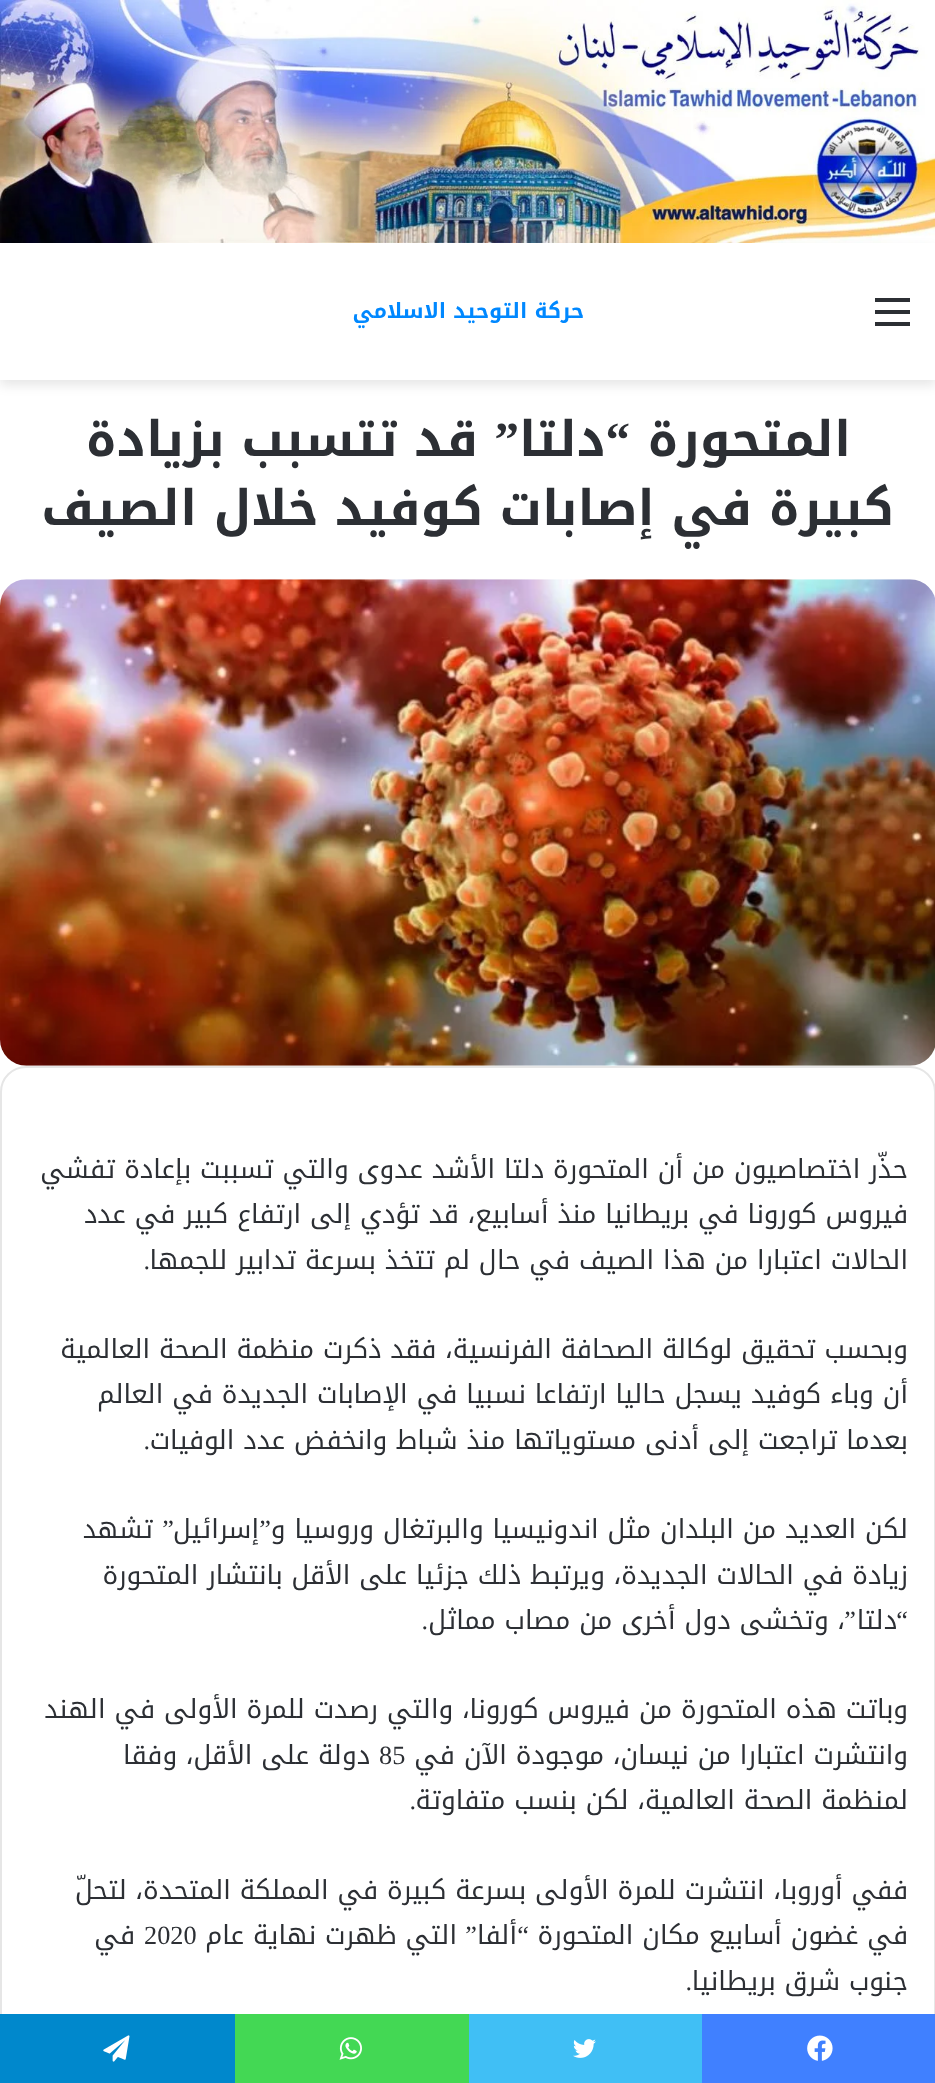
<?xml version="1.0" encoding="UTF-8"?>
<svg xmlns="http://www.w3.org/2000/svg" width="935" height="2083">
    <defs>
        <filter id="blur1" x="-50%" y="-200%" width="200%" height="500%"><feGaussianBlur stdDeviation="6"/></filter>
    </defs>
    <rect width="100%" height="100%" fill="#FFFFFF"/>
    <image x="0" y="0" width="935" height="243" href="img_01.png"/>
    <rect x="0" y="249" width="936" height="136" fill="#000000" fill-opacity="0.1" filter="url(#blur1)"/>
    <rect x="0" y="243" width="935" height="137" fill="#FFFFFF"/>
    <rect x="875" y="310" width="35" height="4" fill="#2C2F34"/>
    <rect x="875" y="298" width="35" height="4" fill="#2C2F34"/>
    <rect x="875" y="322" width="35" height="4" fill="#2C2F34"/>
    <text x="584" y="318" font-family="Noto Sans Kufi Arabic" font-size="21" font-weight="700" direction="rtl" fill="#0088FF">حركة التوحيد الاسلامي</text>
    <text x="851" y="456" font-family="Noto Sans Kufi Arabic" font-size="49" font-weight="700" direction="rtl" fill="#2C2F34">المتحورة</text>
    <text x="630" y="456" font-family="Liberation Serif" font-size="49" font-weight="700" direction="rtl" fill="#2C2F34">“</text>
    <text x="606" y="456" font-family="Noto Sans Kufi Arabic" font-size="49" font-weight="700" direction="rtl" fill="#2C2F34">دلتا</text>
    <text x="519" y="456" font-family="Liberation Serif" font-size="49" font-weight="700" direction="rtl" fill="#2C2F34">”</text>
    <text x="478" y="456" font-family="Noto Sans Kufi Arabic" font-size="49" font-weight="700" direction="rtl" fill="#2C2F34">قد تتسبب بزيادة</text>
    <text x="894" y="525" font-family="Noto Sans Kufi Arabic" font-size="49" font-weight="700" direction="rtl" fill="#2C2F34">كبيرة في إصابات كوفيد خلال الصيف</text>
    <image x="0" y="579" width="935" height="487" href="img_02.png"/>
    <rect x="1" y="1067" width="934" height="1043" rx="25" fill="none" stroke="#E6E6E6" stroke-width="2"/>
    <text font-family="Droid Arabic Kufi" font-size="26.25" direction="rtl" fill="#2C2F34">
        <tspan x="908" y="1178">حذّر اختصاصيون من أن المتحورة دلتا الأشد عدوى والتي تسببت بإعادة تفشي</tspan>
        <tspan x="908" y="1223">فيروس كورونا في بريطانيا منذ أسابيع، قد تؤدي إلى ارتفاع كبير في عدد</tspan>
        <tspan x="908" y="1269">الحالات اعتبارا من هذا الصيف في حال لم تتخذ بسرعة تدابير للجمها</tspan>
    </text>
    <text x="150" y="1269" font-family="Liberation Serif" font-size="26.25" direction="rtl" fill="#2C2F34">.</text>
    <text font-family="Droid Arabic Kufi" font-size="26.25" direction="rtl" fill="#2C2F34">
        <tspan x="908" y="1358">وبحسب تحقيق لوكالة الصحافة الفرنسية، فقد ذكرت منظمة الصحة العالمية</tspan>
        <tspan x="908" y="1403">أن وباء كوفيد يسجل حاليا ارتفاعا نسبيا في الإصابات الجديدة في العالم</tspan>
        <tspan x="908" y="1449">بعدما تراجعت إلى أدنى مستوياتها منذ شباط وانخفض عدد الوفيات</tspan>
    </text>
    <text x="150" y="1449" font-family="Liberation Serif" font-size="26.25" direction="rtl" fill="#2C2F34">.</text>
    <text x="908" y="1538" font-family="Droid Arabic Kufi" font-size="26.25" direction="rtl" fill="#2C2F34">لكن العديد من البلدان مثل اندونيسيا والبرتغال وروسيا و</text>
    <text x="271" y="1538" font-family="Liberation Serif" font-size="26.25" direction="rtl" fill="#2C2F34">”</text>
    <text x="259" y="1538" font-family="Droid Arabic Kufi" font-size="26.25" direction="rtl" fill="#2C2F34">إسرائيل</text>
    <text x="174" y="1538" font-family="Liberation Serif" font-size="26.25" direction="rtl" fill="#2C2F34">”</text>
    <text x="153" y="1538" font-family="Droid Arabic Kufi" font-size="26.25" direction="rtl" fill="#2C2F34">تشهد</text>
    <text x="908" y="1584" font-family="Droid Arabic Kufi" font-size="26.25" direction="rtl" fill="#2C2F34">زيادة في الحالات الجديدة، ويرتبط ذلك جزئيا على الأقل بانتشار المتحورة</text>
    <text x="908" y="1629" font-family="Liberation Serif" font-size="26.25" direction="rtl" fill="#2C2F34">“</text>
    <text x="897" y="1629" font-family="Droid Arabic Kufi" font-size="26.25" direction="rtl" fill="#2C2F34">دلتا</text>
    <text x="856" y="1629" font-family="Liberation Serif" font-size="26.25" direction="rtl" fill="#2C2F34">”</text>
    <text x="845" y="1629" font-family="Droid Arabic Kufi" font-size="26.25" direction="rtl" fill="#2C2F34">، وتخشى دول أخرى من مصاب مماثل</text>
    <text x="428" y="1629" font-family="Liberation Serif" font-size="26.25" direction="rtl" fill="#2C2F34">.</text>
    <text font-family="Droid Arabic Kufi" font-size="26.25" direction="rtl" fill="#2C2F34">
        <tspan x="908" y="1718">وباتت هذه المتحورة من فيروس كورونا، والتي رصدت للمرة الأولى في الهند</tspan>
        <tspan x="908" y="1764">وانتشرت اعتبارا من نيسان، موجودة الآن في</tspan>
    </text>
    <text x="379" y="1764" font-family="Liberation Serif" font-size="26.25" fill="#2C2F34">85</text>
    <text x="370" y="1764" font-family="Droid Arabic Kufi" font-size="26.25" direction="rtl" fill="#2C2F34">دولة على الأقل، وفقا</text>
    <text x="908" y="1809" font-family="Droid Arabic Kufi" font-size="26.25" direction="rtl" fill="#2C2F34">لمنظمة الصحة العالمية، لكن بنسب متفاوتة</text>
    <text x="416" y="1809" font-family="Liberation Serif" font-size="26.25" direction="rtl" fill="#2C2F34">.</text>
    <text font-family="Droid Arabic Kufi" font-size="26.25" direction="rtl" fill="#2C2F34">
        <tspan x="908" y="1899">ففي أوروبا، انتشرت للمرة الأولى بسرعة كبيرة في المملكة المتحدة، لتحلّ</tspan>
        <tspan x="908" y="1944">في غضون أسابيع مكان المتحورة</tspan>
    </text>
    <text x="529" y="1944" font-family="Liberation Serif" font-size="26.25" direction="rtl" fill="#2C2F34">“</text>
    <text x="517" y="1944" font-family="Droid Arabic Kufi" font-size="26.25" direction="rtl" fill="#2C2F34">ألفا</text>
    <text x="477" y="1944" font-family="Liberation Serif" font-size="26.25" direction="rtl" fill="#2C2F34">”</text>
    <text x="457" y="1944" font-family="Droid Arabic Kufi" font-size="26.25" direction="rtl" fill="#2C2F34">التي ظهرت نهاية عام</text>
    <text x="144" y="1944" font-family="Liberation Serif" font-size="26.25" fill="#2C2F34">2020</text>
    <text x="135" y="1944" font-family="Droid Arabic Kufi" font-size="26.25" direction="rtl" fill="#2C2F34">في</text>
    <text x="908" y="1990" font-family="Droid Arabic Kufi" font-size="26.25" direction="rtl" fill="#2C2F34">جنوب شرق بريطانيا</text>
    <text x="692" y="1990" font-family="Liberation Serif" font-size="26.25" direction="rtl" fill="#2C2F34">.</text>
    <rect x="702" y="2014" width="233" height="69" fill="#4080FF"/>
    <image x="807" y="2035" width="26" height="26" href="img_03.png"/>
    <rect x="469" y="2014" width="233" height="69" fill="#40BFF5"/>
    <image x="573" y="2039" width="23" height="19" href="img_04.png"/>
    <rect x="235" y="2014" width="234" height="69" fill="#43D854"/>
    <image x="339" y="2037" width="23" height="23" href="img_05.png"/>
    <rect x="0" y="2014" width="235" height="69" fill="#0088CC"/>
    <image x="103" y="2035" width="27" height="27" href="img_06.png"/>
</svg>
